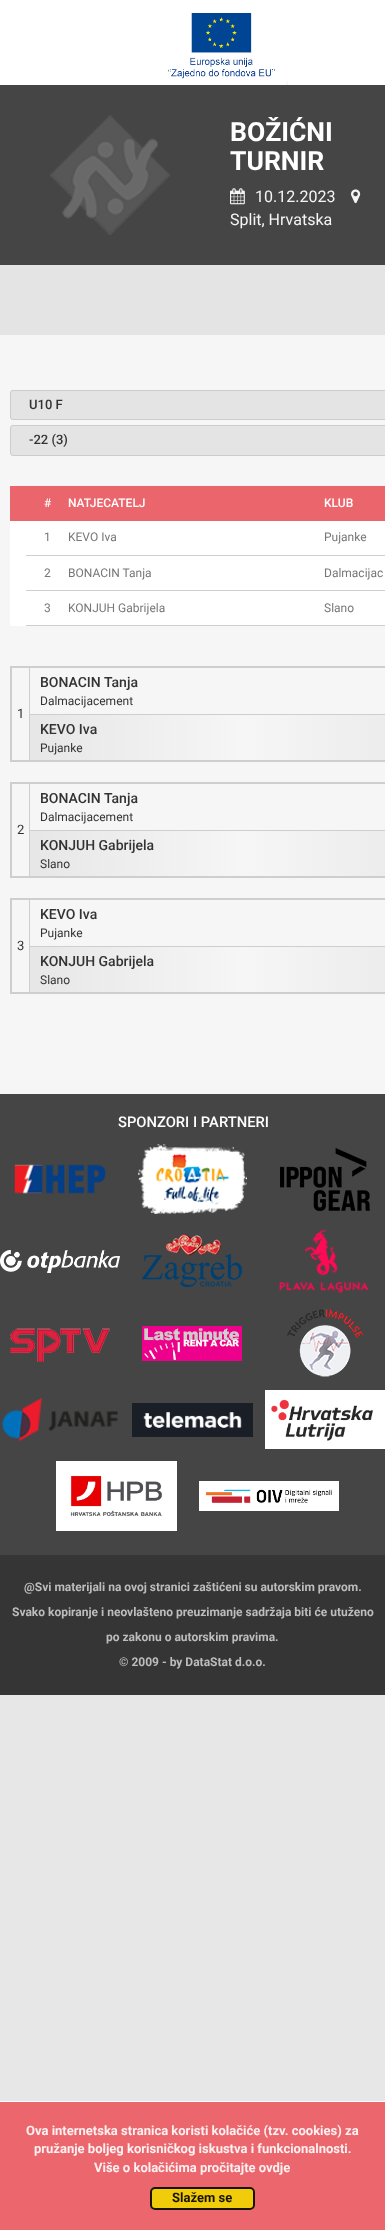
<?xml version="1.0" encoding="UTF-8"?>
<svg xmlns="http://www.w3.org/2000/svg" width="385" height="2230">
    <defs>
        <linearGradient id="g1" gradientUnits="userSpaceOnUse" x1="30" y1="738" x2="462" y2="738"><stop offset="0" stop-color="#E7E7E8"/><stop offset="0.5" stop-color="#F6F6F6"/><stop offset="1" stop-color="#E7E7E8"/></linearGradient>
        <linearGradient id="g2" gradientUnits="userSpaceOnUse" x1="30" y1="854" x2="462" y2="854"><stop offset="0" stop-color="#E7E7E8"/><stop offset="0.5" stop-color="#F6F6F6"/><stop offset="1" stop-color="#E7E7E8"/></linearGradient>
        <linearGradient id="g3" gradientUnits="userSpaceOnUse" x1="30" y1="970" x2="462" y2="970"><stop offset="0" stop-color="#E7E7E8"/><stop offset="0.5" stop-color="#F6F6F6"/><stop offset="1" stop-color="#E7E7E8"/></linearGradient>
    </defs>
    <rect width="100%" height="100%" fill="#E7E7E7"/>
    <rect x="0" y="0" width="385" height="85" fill="#FFFFFF"/>
    <image x="168" y="13" width="120" height="72" href="img_01.png"/>
    <rect x="0" y="85" width="385" height="180" fill="#454545"/>
    <image x="50" y="115" width="120" height="120" href="img_02.png"/>
    <text font-family="Roboto" font-size="26.5" font-weight="700" fill="#FFFFFF">
        <tspan x="230" y="141">BOŽIĆNI</tspan>
        <tspan x="230" y="170">TURNIR</tspan>
    </text>
    <image x="230" y="188" width="15" height="17" href="img_03.png"/>
    <text x="255" y="202" font-family="Roboto" font-size="16" fill="#F5F5F5">10.12.2023</text>
    <image x="351" y="189" width="10" height="15" href="img_04.png"/>
    <text x="230" y="225" font-family="Roboto" font-size="16" fill="#F5F5F5">Split, Hrvatska</text>
    <rect x="0" y="265" width="385" height="70" fill="#E4E4E4"/>
    <rect x="0" y="335" width="385" height="759" fill="#F6F6F6"/>
    <path d="M 13 390 H 385 V 420 H 13 C 11.5 420 10 418.5 10 417 V 393 C 10 391.5 11.5 390 13 390 Z" fill="#E4E4E4"/>
    <rect x="10.5" y="390.5" width="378" height="29" rx="2.5" fill="none" stroke="#CCCCCC"/>
    <text x="29" y="409" font-family="Roboto" font-size="13" font-weight="500" fill="#333333">U10 F</text>
    <path d="M 13 425 H 385 V 456 H 13 C 11.5 456 10 454.5 10 453 V 428 C 10 426.5 11.5 425 13 425 Z" fill="#E4E4E4"/>
    <rect x="10.5" y="425.5" width="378" height="30" rx="2.5" fill="none" stroke="#CCCCCC"/>
    <text x="29" y="444" font-family="Roboto" font-size="13" font-weight="500" fill="#333333">-22 (3)</text>
    <rect x="10" y="486" width="375" height="35" fill="#EB656C"/>
    <text x="44" y="507" font-family="Roboto" font-size="12" font-weight="500" fill="#FFFFFF">#</text>
    <text x="68" y="507" font-family="Roboto" font-size="12" font-weight="500" fill="#FFFFFF">NATJECATELJ</text>
    <text x="324" y="507" font-family="Roboto" font-size="12" font-weight="500" fill="#FFFFFF">KLUB</text>
    <rect x="10" y="521" width="375" height="105" fill="#FFFFFF"/>
    <text x="44" y="541" font-family="Roboto" font-size="12" fill="#777777">1</text>
    <text x="68" y="541" font-family="Roboto" font-size="12" fill="#777777">KEVO Iva</text>
    <rect x="26" y="555" width="359" height="1" fill="#CECECE"/>
    <text x="324" y="541" font-family="Roboto" font-size="12" fill="#777777">Pujanke</text>
    <text x="44" y="577" font-family="Roboto" font-size="12" fill="#777777">2</text>
    <text x="68" y="577" font-family="Roboto" font-size="12" fill="#777777">BONACIN Tanja</text>
    <rect x="26" y="590" width="359" height="1" fill="#CECECE"/>
    <text x="324" y="577" font-family="Roboto" font-size="12" fill="#777777">Dalmacijac</text>
    <text x="44" y="612" font-family="Roboto" font-size="12" fill="#777777">3</text>
    <text x="68" y="612" font-family="Roboto" font-size="12" fill="#777777">KONJUH Gabrijela</text>
    <rect x="26" y="625" width="359" height="1" fill="#CECECE"/>
    <text x="324" y="612" font-family="Roboto" font-size="12" fill="#777777">Slano</text>
    <rect x="11" y="667" width="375" height="94" fill="none" stroke="#CECECE" stroke-width="2"/>
    <rect x="29" y="668" width="1" height="92" fill="#CECECE"/>
    <text x="17" y="718" font-family="Roboto" font-size="13" fill="#333333">1</text>
    <text x="40" y="687" font-family="Roboto" font-size="14" font-weight="500" fill="#333333">BONACIN Tanja</text>
    <text x="40" y="705" font-family="Roboto" font-size="12" fill="#333333">Dalmacijacement</text>
    <rect x="30" y="715" width="355" height="45" fill="url(#g1)"/>
    <rect x="30" y="714" width="355" height="1" fill="#CECECE"/>
    <text x="40" y="734" font-family="Roboto" font-size="14" font-weight="500" fill="#333333">KEVO Iva</text>
    <text x="40" y="752" font-family="Roboto" font-size="12" fill="#333333">Pujanke</text>
    <rect x="11" y="783" width="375" height="94" fill="none" stroke="#CECECE" stroke-width="2"/>
    <rect x="29" y="784" width="1" height="92" fill="#CECECE"/>
    <text x="17" y="834" font-family="Roboto" font-size="13" fill="#333333">2</text>
    <text x="40" y="803" font-family="Roboto" font-size="14" font-weight="500" fill="#333333">BONACIN Tanja</text>
    <text x="40" y="821" font-family="Roboto" font-size="12" fill="#333333">Dalmacijacement</text>
    <rect x="30" y="831" width="355" height="45" fill="url(#g2)"/>
    <rect x="30" y="830" width="355" height="1" fill="#CECECE"/>
    <text x="40" y="850" font-family="Roboto" font-size="14" font-weight="500" fill="#333333">KONJUH Gabrijela</text>
    <text x="40" y="868" font-family="Roboto" font-size="12" fill="#333333">Slano</text>
    <rect x="11" y="899" width="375" height="94" fill="none" stroke="#CECECE" stroke-width="2"/>
    <rect x="29" y="900" width="1" height="92" fill="#CECECE"/>
    <text x="17" y="950" font-family="Roboto" font-size="13" fill="#333333">3</text>
    <text x="40" y="919" font-family="Roboto" font-size="14" font-weight="500" fill="#333333">KEVO Iva</text>
    <text x="40" y="937" font-family="Roboto" font-size="12" fill="#333333">Pujanke</text>
    <rect x="30" y="947" width="355" height="45" fill="url(#g3)"/>
    <rect x="30" y="946" width="355" height="1" fill="#CECECE"/>
    <text x="40" y="966" font-family="Roboto" font-size="14" font-weight="500" fill="#333333">KONJUH Gabrijela</text>
    <text x="40" y="984" font-family="Roboto" font-size="12" fill="#333333">Slano</text>
    <rect x="0" y="2102" width="385" height="128" fill="#EB666D"/>
    <rect x="151" y="2188" width="103" height="21" rx="4" fill="#EC7164" stroke="#D65D64" stroke-width="2"/>
    <rect x="0" y="1094" width="385" height="461" fill="#454545"/>
    <text x="118" y="1127" font-family="Roboto" font-size="14.75" font-weight="500" fill="#FFFFFF">SPONZORI I PARTNERI</text>
    <image x="14" y="1164" width="92" height="30" href="img_05.png"/>
    <image x="138" y="1144" width="109" height="70" href="img_06.png"/>
    <image x="280" y="1148" width="90" height="63" href="img_07.png"/>
    <image x="0" y="1250" width="120" height="23" href="img_08.png"/>
    <image x="142" y="1234" width="100" height="53" href="img_09.png"/>
    <image x="279" y="1229" width="90" height="64" href="img_10.png"/>
    <image x="10" y="1328" width="100" height="34" href="img_11.png"/>
    <image x="142" y="1326" width="100" height="35" href="img_12.png"/>
    <image x="287" y="1309" width="76" height="68" href="img_13.png"/>
    <image x="2" y="1397" width="116" height="44" href="img_14.png"/>
    <image x="132" y="1403" width="121" height="34" href="img_15.png"/>
    <image x="265" y="1390" width="120" height="59" href="img_16.png"/>
    <image x="56" y="1461" width="121" height="70" href="img_17.png"/>
    <image x="199" y="1481" width="140" height="30" href="img_18.png"/>
    <rect x="0" y="1555" width="385" height="140" fill="#353535"/>
    <text x="24" y="1591" font-family="Roboto" font-size="12" font-weight="700" fill="#BDBDBD">@Svi materijali na ovoj stranici zaštićeni su autorskim pravom.</text>
    <text x="12" y="1616" font-family="Roboto" font-size="12" font-weight="700" fill="#BDBDBD">Svako kopiranje i neovlašteno preuzimanje sadržaja biti će utuženo</text>
    <text x="106" y="1641" font-family="Roboto" font-size="12" font-weight="700" fill="#BDBDBD">po zakonu o autorskim pravima.</text>
    <text x="119" y="1666" font-family="Roboto" font-size="12" font-weight="700" fill="#BDBDBD">© 2009 - by DataStat d.o.o.</text>
    <rect x="0" y="2101" width="385" height="1" fill="#FFFFFF"/>
    <text x="26" y="2135" font-family="Roboto" font-size="13" font-weight="700" fill="#FDF1F1">Ova internetska stranica koristi kolačiće (tzv. cookies) za</text>
    <text x="34" y="2153" font-family="Roboto" font-size="13" font-weight="700" fill="#FDF1F1">pružanje boljeg korisničkog iskustva i funkcionalnosti.</text>
    <text x="94" y="2172" font-family="Roboto" font-size="13" font-weight="700" fill="#FDF1F1">Više o kolačićima pročitajte ovdje</text>
    <rect x="150" y="2187" width="105" height="23" rx="5" fill="#F1D600" fill-opacity="0.9"/>
    <rect x="151" y="2188" width="103" height="21" rx="4" fill="none" stroke="#000000" stroke-opacity="0.9" stroke-width="2"/>
    <text x="172" y="2202" font-family="Roboto" font-size="13" font-weight="700" fill="#181401">Slažem se</text>
</svg>
